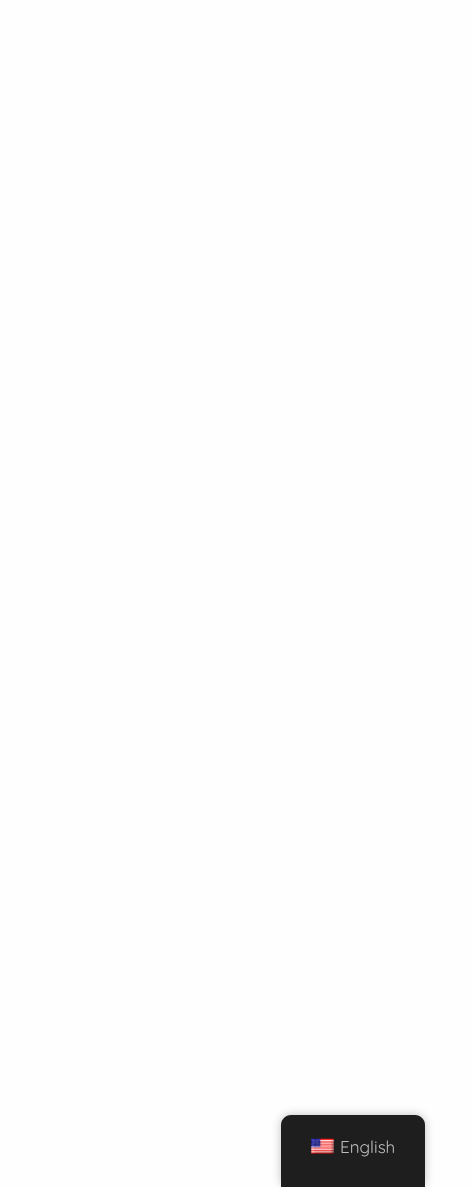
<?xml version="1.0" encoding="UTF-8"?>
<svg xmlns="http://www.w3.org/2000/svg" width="472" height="1187">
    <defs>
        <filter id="blur1" x="-50%" y="-200%" width="200%" height="500%"><feGaussianBlur stdDeviation="5"/></filter>
    </defs>
    <rect width="100%" height="100%" fill="#FEFEFE"/>
    <rect x="281" y="1115" width="144" height="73" rx="10" fill="#000000" fill-opacity="0.25" filter="url(#blur1)"/>
    <path d="M 291 1115 H 415 C 420.5 1115 425 1119.5 425 1125 V 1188 H 281 V 1125 C 281 1119.5 285.5 1115 291 1115 Z" fill="#1E1E1E"/>
    <image x="311" y="1138" width="23" height="16" href="img_01.png"/>
    <text x="340" y="1153" font-family="Quicksand" font-size="17" fill="#BDBDBD">English</text>
</svg>
